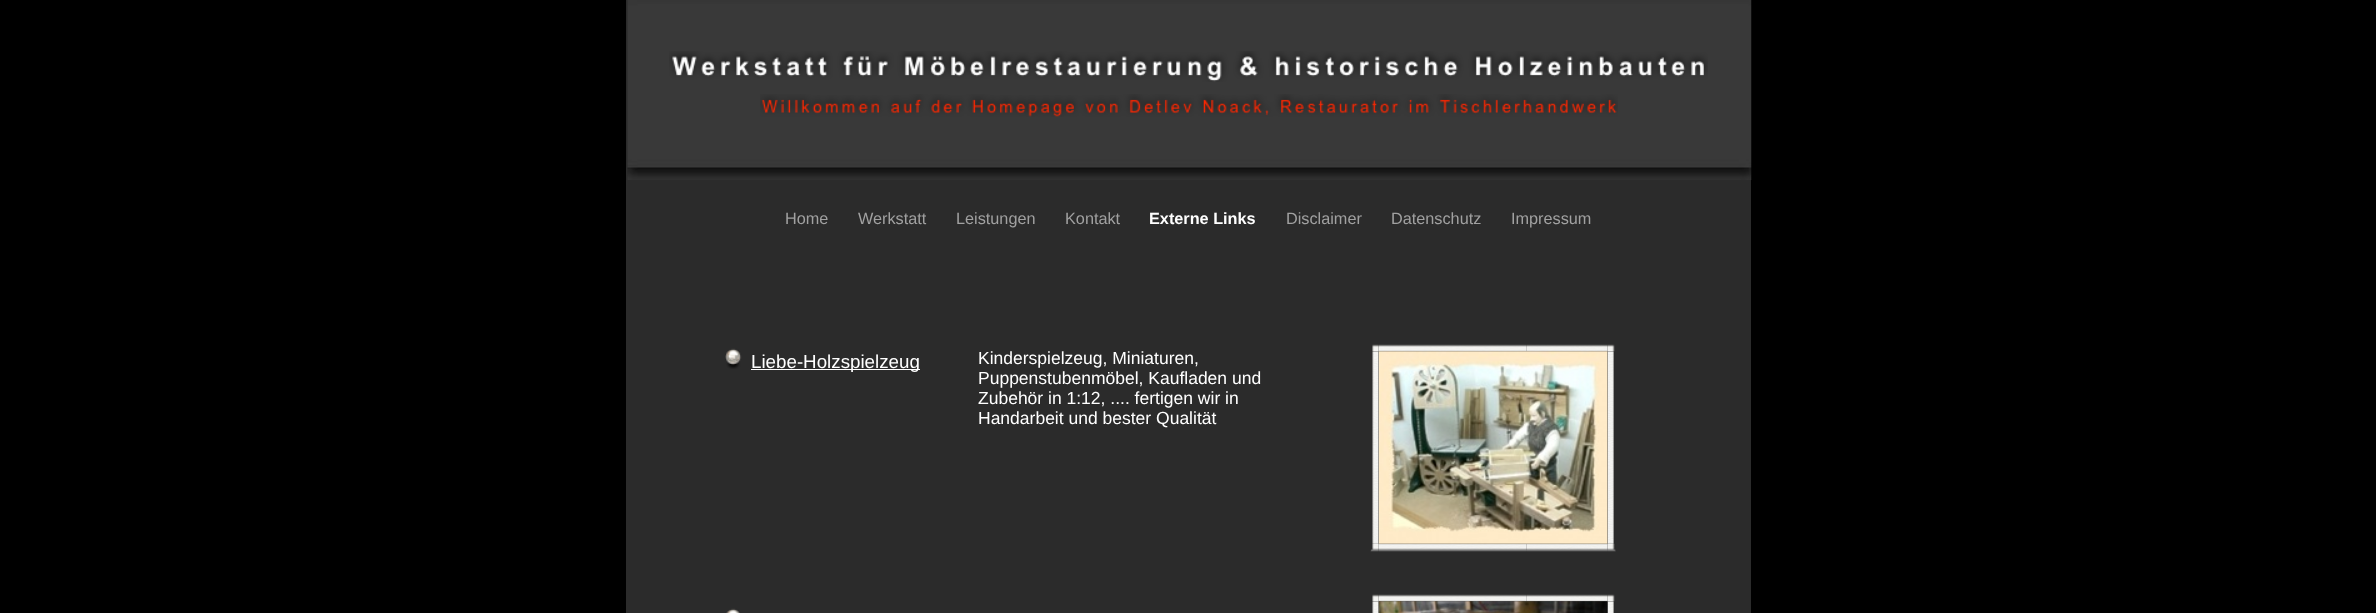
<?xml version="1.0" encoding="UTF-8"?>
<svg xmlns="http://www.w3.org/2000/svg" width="2376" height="613">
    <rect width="100%" height="100%" fill="#000000"/>
    <rect x="626" y="0" width="1125" height="613" fill="#2B2B2B"/>
    <image x="627" y="0" width="1125" height="180" href="img_01.png"/>
    <image x="669" y="51" width="1039" height="31" href="img_02.png"/>
    <image x="760" y="94" width="858" height="23" href="img_03.png"/>
    <text x="785" y="224" font-family="Liberation Sans" font-size="16.25" fill="#A1A1A1">Home</text>
    <text x="858" y="224" font-family="Liberation Sans" font-size="16.25" fill="#A1A1A1">Werkstatt</text>
    <text x="956" y="224" font-family="Liberation Sans" font-size="16.25" fill="#A1A1A1">Leistungen</text>
    <text x="1065" y="224" font-family="Liberation Sans" font-size="16.25" fill="#A1A1A1">Kontakt</text>
    <text x="1149" y="224" font-family="Liberation Sans" font-size="16.25" font-weight="700" fill="#FFFFFF">Externe Links</text>
    <text x="1286" y="224" font-family="Liberation Sans" font-size="16.25" fill="#A1A1A1">Disclaimer</text>
    <text x="1391" y="224" font-family="Liberation Sans" font-size="16.25" fill="#A1A1A1">Datenschutz</text>
    <text x="1511" y="224" font-family="Liberation Sans" font-size="16.25" fill="#A1A1A1">Impressum</text>
    <image x="725" y="348" width="17" height="21" href="img_04.png"/>
    <rect x="751" y="369" width="169" height="1" fill="#FFFFFF"/>
    <text x="751" y="368" font-family="Liberation Sans" font-size="18.75" fill="#FFFFFF">Liebe-Holzspielzeug</text>
    <text font-family="Liberation Sans" font-size="17.5" fill="#FFFFFF">
        <tspan x="978" y="364">Kinderspielzeug, Miniaturen,</tspan>
        <tspan x="978" y="384">Puppenstubenmöbel, Kaufladen und</tspan>
        <tspan x="978" y="404">Zubehör in 1:12, .... fertigen wir in</tspan>
        <tspan x="978" y="424">Handarbeit und bester Qualität</tspan>
    </text>
    <image x="1378" y="351" width="230" height="193" href="img_15.png"/>
    <image x="1372" y="344" width="7" height="8" href="img_05.png"/>
    <image x="1379" y="344" width="148" height="8" href="img_06.png"/>
    <image x="1607" y="344" width="8" height="8" href="img_08.png"/>
    <image x="1607" y="543" width="9" height="9" href="img_14.png"/>
    <image x="1607" y="351" width="7" height="193" href="img_10.png"/>
    <image x="1526" y="344" width="82" height="8" href="img_07.png"/>
    <image x="1370" y="543" width="9" height="9" href="img_11.png"/>
    <image x="1372" y="351" width="7" height="193" href="img_09.png"/>
    <image x="1378" y="543" width="149" height="9" href="img_12.png"/>
    <image x="1526" y="543" width="82" height="9" href="img_13.png"/>
    <image x="726" y="608" width="14" height="5" href="img_16.png"/>
    <image x="1378" y="601" width="230" height="12" href="img_23.png"/>
    <image x="1372" y="594" width="7" height="8" href="img_17.png"/>
    <image x="1379" y="594" width="148" height="8" href="img_18.png"/>
    <image x="1607" y="594" width="8" height="8" href="img_20.png"/>
    <image x="1607" y="601" width="7" height="12" href="img_22.png"/>
    <image x="1526" y="594" width="82" height="8" href="img_19.png"/>
    <image x="1372" y="601" width="7" height="12" href="img_21.png"/>
</svg>
